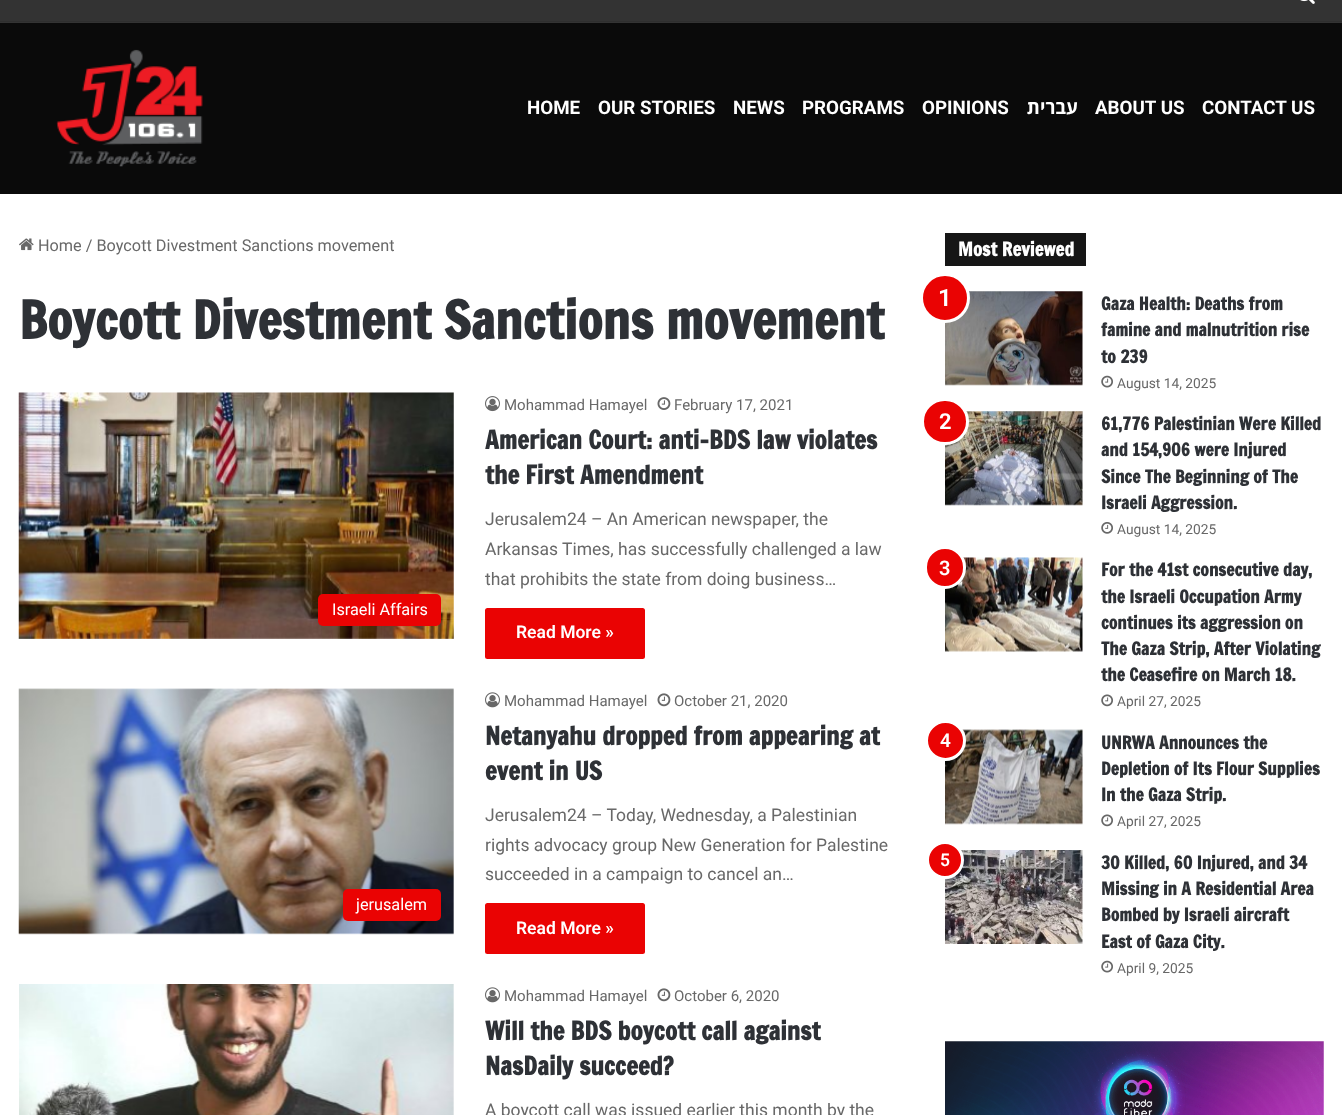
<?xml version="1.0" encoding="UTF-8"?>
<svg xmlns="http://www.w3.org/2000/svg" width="1342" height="1115">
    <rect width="100%" height="100%" fill="#FFFFFF"/>
    <rect x="0" y="0" width="1342" height="23" fill="#333333"/>
    <rect x="0" y="21" width="1342" height="1" fill="#2E2E2E"/>
    <image x="1300" y="0" width="15" height="4" href="img_01.png"/>
    <rect x="0" y="23" width="1342" height="171" fill="#0A0A0A"/>
    <image x="56" y="49" width="147" height="118" href="img_02.png"/>
    <text x="527" y="114" font-family="Roboto" font-size="18.75" font-weight="700" fill="#FFFFFF">HOME</text>
    <text x="598" y="114" font-family="Roboto" font-size="18.75" font-weight="700" fill="#FFFFFF">OUR STORIES</text>
    <text x="733" y="114" font-family="Roboto" font-size="18.75" font-weight="700" fill="#FFFFFF">NEWS</text>
    <text x="802" y="114" font-family="Roboto" font-size="18.75" font-weight="700" fill="#FFFFFF">PROGRAMS</text>
    <text x="922" y="114" font-family="Roboto" font-size="18.75" font-weight="700" fill="#FFFFFF">OPINIONS</text>
    <text x="1078" y="114" font-family="Open Sans" font-size="18.75" font-weight="700" direction="rtl" fill="#FFFFFF">עברית</text>
    <text x="1095" y="114" font-family="Roboto" font-size="18.75" font-weight="700" fill="#FFFFFF">ABOUT US</text>
    <text x="1202" y="114" font-family="Roboto" font-size="18.75" font-weight="700" fill="#FFFFFF">CONTACT US</text>
    <image x="19" y="238" width="15" height="13" href="img_03.png"/>
    <text x="38" y="251" font-family="Roboto" font-size="16.25" fill="#686868">Home / Boycott Divestment Sanctions movement</text>
    <text x="19" y="339" font-family="Francois One" font-size="51.25" font-weight="700" fill="#2E3136">Boycott Divestment Sanctions movement</text>
    <image x="18" y="392" width="436" height="247" href="img_04.png"/>
    <rect x="318" y="594" width="123" height="32" rx="5" fill="#EA0303"/>
    <text x="332" y="615" font-family="Roboto" font-size="16.25" fill="#FFFFFF">Israeli Affairs</text>
    <image x="485" y="396" width="15" height="16" href="img_05.png"/>
    <text x="504" y="410" font-family="Roboto" font-size="15" fill="#686868">Mohammad Hamayel</text>
    <image x="657" y="397" width="14" height="13" href="img_06.png"/>
    <text x="674" y="410" font-family="Roboto" font-size="15" fill="#686868">February 17, 2021</text>
    <text font-family="Francois One" font-size="25" font-weight="700" fill="#2E3136">
        <tspan x="485" y="449">American Court: anti-BDS law violates</tspan>
        <tspan x="485" y="484">the First Amendment</tspan>
    </text>
    <text font-family="Roboto" font-size="17.5" fill="#686868">
        <tspan x="485" y="525">Jerusalem24 – An American newspaper, the</tspan>
        <tspan x="485" y="555">Arkansas Times, has successfully challenged a law</tspan>
        <tspan x="485" y="585">that prohibits the state from doing business…</tspan>
    </text>
    <rect x="485" y="608" width="160" height="51" rx="2.5" fill="#EA0303"/>
    <text x="516" y="638" font-family="Roboto" font-size="17.5" font-weight="600" fill="#FFFFFF">Read More »</text>
    <image x="18" y="688" width="436" height="247" href="img_07.png"/>
    <rect x="343" y="889" width="98" height="32" rx="5" fill="#EA0303"/>
    <text x="356" y="910" font-family="Roboto" font-size="16.25" fill="#FFFFFF">jerusalem</text>
    <image x="485" y="692" width="15" height="16" href="img_08.png"/>
    <text x="504" y="706" font-family="Roboto" font-size="15" fill="#686868">Mohammad Hamayel</text>
    <image x="657" y="693" width="14" height="14" href="img_09.png"/>
    <text x="674" y="706" font-family="Roboto" font-size="15" fill="#686868">October 21, 2020</text>
    <text font-family="Francois One" font-size="25" font-weight="700" fill="#2E3136">
        <tspan x="485" y="745">Netanyahu dropped from appearing at</tspan>
        <tspan x="485" y="780">event in US</tspan>
    </text>
    <text font-family="Roboto" font-size="17.5" fill="#686868">
        <tspan x="485" y="821">Jerusalem24 – Today, Wednesday, a Palestinian</tspan>
        <tspan x="485" y="851">rights advocacy group New Generation for Palestine</tspan>
        <tspan x="485" y="880">succeeded in a campaign to cancel an…</tspan>
    </text>
    <rect x="485" y="903" width="160" height="51" rx="2.5" fill="#EA0303"/>
    <text x="516" y="934" font-family="Roboto" font-size="17.5" font-weight="600" fill="#FFFFFF">Read More »</text>
    <image x="19" y="984" width="435" height="131" href="img_10.png"/>
    <image x="485" y="987" width="15" height="16" href="img_08.png"/>
    <text x="504" y="1001" font-family="Roboto" font-size="15" fill="#686868">Mohammad Hamayel</text>
    <image x="657" y="988" width="14" height="14" href="img_09.png"/>
    <text x="674" y="1001" font-family="Roboto" font-size="15" fill="#686868">October 6, 2020</text>
    <text font-family="Francois One" font-size="25" font-weight="700" fill="#2E3136">
        <tspan x="485" y="1040">Will the BDS boycott call against</tspan>
        <tspan x="485" y="1075">NasDaily succeed?</tspan>
    </text>
    <text x="485" y="1116" font-family="Roboto" font-size="17.5" fill="#686868">A boycott call was issued earlier this month by the</text>
    <rect x="945" y="233" width="141" height="33" fill="#161616"/>
    <text x="958" y="256" font-family="Francois One" font-size="18.75" font-weight="700" fill="#FFFFFF">Most Reviewed</text>
    <image x="945" y="291" width="138" height="95" href="img_11.png"/>
    <circle cx="945" cy="298" r="23.5" fill="#EA0303" stroke="#FFFFFF" stroke-width="3"/>
    <text x="938" y="306" font-family="Roboto" font-size="24" font-weight="600" fill="#FFFFFF">1</text>
    <text font-family="Francois One" font-size="17.5" font-weight="700" fill="#2E3136">
        <tspan x="1101" y="310">Gaza Health: Deaths from</tspan>
        <tspan x="1101" y="336">famine and malnutrition rise</tspan>
        <tspan x="1101" y="363">to 239</tspan>
    </text>
    <image x="1101" y="375" width="12" height="13" href="img_12.png"/>
    <text x="1117" y="388" font-family="Roboto" font-size="13.75" fill="#686868">August 14, 2025</text>
    <image x="945" y="411" width="138" height="95" href="img_13.png"/>
    <rect x="922.5" y="399.5" width="45" height="44" rx="22" fill="#EA0303" stroke="#FFFFFF" stroke-width="3"/>
    <text x="939" y="429" font-family="Roboto" font-size="22" font-weight="600" fill="#FFFFFF">2</text>
    <text font-family="Francois One" font-size="17.5" font-weight="700" fill="#2E3136">
        <tspan x="1101" y="430">61,776 Palestinian Were Killed</tspan>
        <tspan x="1101" y="456">and 154,906 were Injured</tspan>
        <tspan x="1101" y="483">Since The Beginning of The</tspan>
        <tspan x="1101" y="509">Israeli Aggression.</tspan>
    </text>
    <image x="1101" y="522" width="12" height="12" href="img_14.png"/>
    <text x="1117" y="534" font-family="Roboto" font-size="13.75" fill="#686868">August 14, 2025</text>
    <image x="945" y="557" width="138" height="95" href="img_15.png"/>
    <rect x="925.5" y="547.5" width="39" height="40" rx="19.5" fill="#EA0303" stroke="#FFFFFF" stroke-width="3"/>
    <text x="939" y="575" font-family="Roboto" font-size="20" font-weight="600" fill="#FFFFFF">3</text>
    <text font-family="Francois One" font-size="17.5" font-weight="700" fill="#2E3136">
        <tspan x="1101" y="576">For the 41st consecutive day,</tspan>
        <tspan x="1101" y="603">the Israeli Occupation Army</tspan>
        <tspan x="1101" y="629">continues its aggression on</tspan>
        <tspan x="1101" y="655">The Gaza Strip, After Violating</tspan>
        <tspan x="1101" y="681">the Ceasefire on March 18.</tspan>
    </text>
    <image x="1101" y="694" width="12" height="13" href="img_16.png"/>
    <text x="1117" y="706" font-family="Roboto" font-size="13.75" fill="#686868">April 27, 2025</text>
    <image x="945" y="729" width="138" height="96" href="img_17.png"/>
    <circle cx="945.5" cy="740.5" r="19" fill="#EA0303" stroke="#FFFFFF" stroke-width="3"/>
    <text x="940" y="747" font-family="Roboto" font-size="19" font-weight="600" fill="#FFFFFF">4</text>
    <text font-family="Francois One" font-size="17.5" font-weight="700" fill="#2E3136">
        <tspan x="1101" y="749">UNRWA Announces the</tspan>
        <tspan x="1101" y="775">Depletion of Its Flour Supplies</tspan>
        <tspan x="1101" y="801">In the Gaza Strip.</tspan>
    </text>
    <image x="1101" y="814" width="12" height="13" href="img_16.png"/>
    <text x="1117" y="826" font-family="Roboto" font-size="13.75" fill="#686868">April 27, 2025</text>
    <image x="945" y="850" width="138" height="94" href="img_18.png"/>
    <circle cx="945" cy="860" r="17.5" fill="#EA0303" stroke="#FFFFFF" stroke-width="3"/>
    <text x="940" y="866" font-family="Roboto" font-size="17.5" font-weight="600" fill="#FFFFFF">5</text>
    <text font-family="Francois One" font-size="17.5" font-weight="700" fill="#2E3136">
        <tspan x="1101" y="869">30 Killed, 60 Injured, and 34</tspan>
        <tspan x="1101" y="895">Missing in A Residential Area</tspan>
        <tspan x="1101" y="921">Bombed by Israeli aircraft</tspan>
        <tspan x="1101" y="948">East of Gaza City.</tspan>
    </text>
    <image x="1101" y="960" width="12" height="13" href="img_12.png"/>
    <text x="1117" y="973" font-family="Roboto" font-size="13.75" fill="#686868">April 9, 2025</text>
    <image x="945" y="1041" width="379" height="74" href="img_19.png"/>
</svg>
